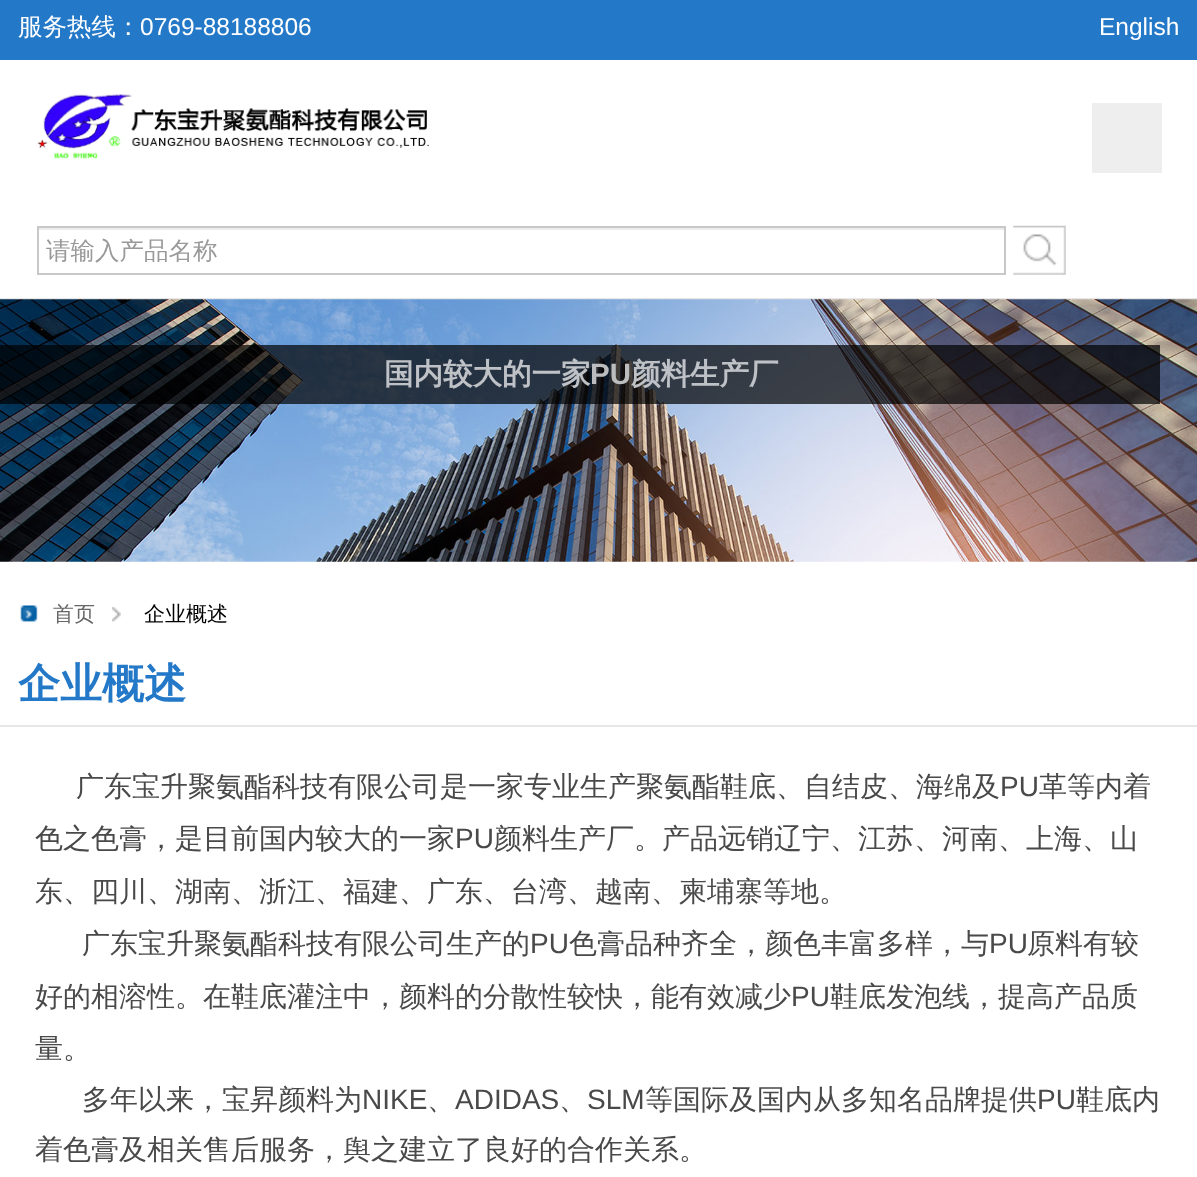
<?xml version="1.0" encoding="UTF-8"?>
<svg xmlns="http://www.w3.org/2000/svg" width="1197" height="1177">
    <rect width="100%" height="100%" fill="#FFFFFF"/>
    <rect x="0" y="0" width="1197" height="60" fill="#2378C8"/>
    <text x="18" y="35" font-family="WenQuanYi Zen Hei" font-size="24.5" font-weight="500" fill="#FFFFFF">服务热线：</text>
    <text x="140" y="35" font-family="Liberation Sans" font-size="24.5" fill="#FFFFFF">0769-88188806</text>
    <text x="1099" y="35" font-family="Liberation Sans" font-size="24.5" fill="#FFFFFF">English</text>
    <image x="37" y="94" width="392" height="65" href="img_01.png"/>
    <rect x="1092" y="103" width="70" height="70" fill="#EEEEEE"/>
    <rect x="39" y="228" width="966" height="2" fill="#ECECEC"/>
    <rect x="38" y="227" width="967" height="47" fill="none" stroke="#C8C8C8" stroke-width="2"/>
    <text x="46" y="259" font-family="WenQuanYi Zen Hei" font-size="24.5" font-weight="500" fill="#999999">请输入产品名称</text>
    <image x="1013" y="225" width="53" height="50" href="img_02.png"/>
    <rect x="0" y="298" width="1197" height="2" fill="#E7E7E7"/>
    <image x="0" y="299" width="1197" height="263" href="img_03.png"/>
    <rect x="0" y="345" width="1160" height="59" fill="#000000" fill-opacity="0.7"/>
    <text x="384" y="384" font-family="WenQuanYi Zen Hei" font-size="29.5" font-weight="700" fill="#BEC1C6">国内较大的一家</text>
    <text x="590" y="384" font-family="Liberation Sans" font-size="29.5" font-weight="700" fill="#BBBCBD">PU</text>
    <text x="631" y="384" font-family="WenQuanYi Zen Hei" font-size="29.5" font-weight="700" fill="#BEC1C6">颜料生产厂</text>
    <rect x="0" y="725" width="1197" height="2" fill="#E7E7E7"/>
    <image x="20" y="605" width="18" height="17" href="img_04.png"/>
    <text x="53" y="621" font-family="WenQuanYi Zen Hei" font-size="21" font-weight="500" fill="#666666">首页</text>
    <image x="112" y="607" width="9" height="15" href="img_05.png"/>
    <text x="144" y="621" font-family="WenQuanYi Zen Hei" font-size="21" font-weight="500" fill="#000000">企业概述</text>
    <text x="18" y="698" font-family="WenQuanYi Zen Hei" font-size="42" font-weight="700" fill="#2378C8">企业概述</text>
    <text x="76" y="796" font-family="WenQuanYi Zen Hei" font-size="28" font-weight="500" fill="#494949">广东宝升聚氨酯科技有限公司是一家专业生产聚氨酯鞋底、自结皮、海绵及</text>
    <text x="1000" y="796" font-family="Liberation Sans" font-size="28" fill="#494949">PU</text>
    <text x="1039" y="796" font-family="WenQuanYi Zen Hei" font-size="28" font-weight="500" fill="#494949">革等内着</text>
    <text x="35" y="848" font-family="WenQuanYi Zen Hei" font-size="28" font-weight="500" fill="#494949">色之色膏，是目前国内较大的一家</text>
    <text x="455" y="848" font-family="Liberation Sans" font-size="28" fill="#494949">PU</text>
    <text x="494" y="848" font-family="WenQuanYi Zen Hei" font-size="28" font-weight="500" fill="#494949">颜料生产厂。产品远销辽宁、江苏、河南、上海、山</text>
    <text x="35" y="901" font-family="WenQuanYi Zen Hei" font-size="28" font-weight="500" fill="#494949">东、四川、湖南、浙江、福建、广东、台湾、越南、柬埔寨等地。</text>
    <text x="82" y="953" font-family="WenQuanYi Zen Hei" font-size="28" font-weight="500" fill="#494949">广东宝升聚氨酯科技有限公司生产的</text>
    <text x="530" y="953" font-family="Liberation Sans" font-size="28" fill="#494949">PU</text>
    <text x="569" y="953" font-family="WenQuanYi Zen Hei" font-size="28" font-weight="500" fill="#494949">色膏品种齐全，颜色丰富多样，与</text>
    <text x="989" y="953" font-family="Liberation Sans" font-size="28" fill="#494949">PU</text>
    <text x="1027" y="953" font-family="WenQuanYi Zen Hei" font-size="28" font-weight="500" fill="#494949">原料有较</text>
    <text x="35" y="1006" font-family="WenQuanYi Zen Hei" font-size="28" font-weight="500" fill="#494949">好的相溶性。在鞋底灌注中，颜料的分散性较快，能有效减少</text>
    <text x="791" y="1006" font-family="Liberation Sans" font-size="28" fill="#494949">PU</text>
    <text x="830" y="1006" font-family="WenQuanYi Zen Hei" font-size="28" font-weight="500" fill="#494949">鞋底发泡线，提高产品质</text>
    <text x="35" y="1058" font-family="WenQuanYi Zen Hei" font-size="28" font-weight="500" fill="#494949">量。</text>
    <text x="82" y="1109" font-family="WenQuanYi Zen Hei" font-size="28" font-weight="500" fill="#494949">多年以来，宝昇颜料为</text>
    <text x="362" y="1109" font-family="Liberation Sans" font-size="28" fill="#494949">NIKE</text>
    <text x="427" y="1109" font-family="WenQuanYi Zen Hei" font-size="28" font-weight="500" fill="#494949">、</text>
    <text x="455" y="1109" font-family="Liberation Sans" font-size="28" fill="#494949">ADIDAS</text>
    <text x="559" y="1109" font-family="WenQuanYi Zen Hei" font-size="28" font-weight="500" fill="#494949">、</text>
    <text x="587" y="1109" font-family="Liberation Sans" font-size="28" fill="#494949">SLM</text>
    <text x="645" y="1109" font-family="WenQuanYi Zen Hei" font-size="28" font-weight="500" fill="#494949">等国际及国内从多知名品牌提供</text>
    <text x="1037" y="1109" font-family="Liberation Sans" font-size="28" fill="#494949">PU</text>
    <text x="1076" y="1109" font-family="WenQuanYi Zen Hei" font-size="28" font-weight="500" fill="#494949">鞋底内</text>
    <text x="35" y="1159" font-family="WenQuanYi Zen Hei" font-size="28" font-weight="500" fill="#494949">着色膏及相关售后服务，舆之建立了良好的合作关系。</text>
</svg>
